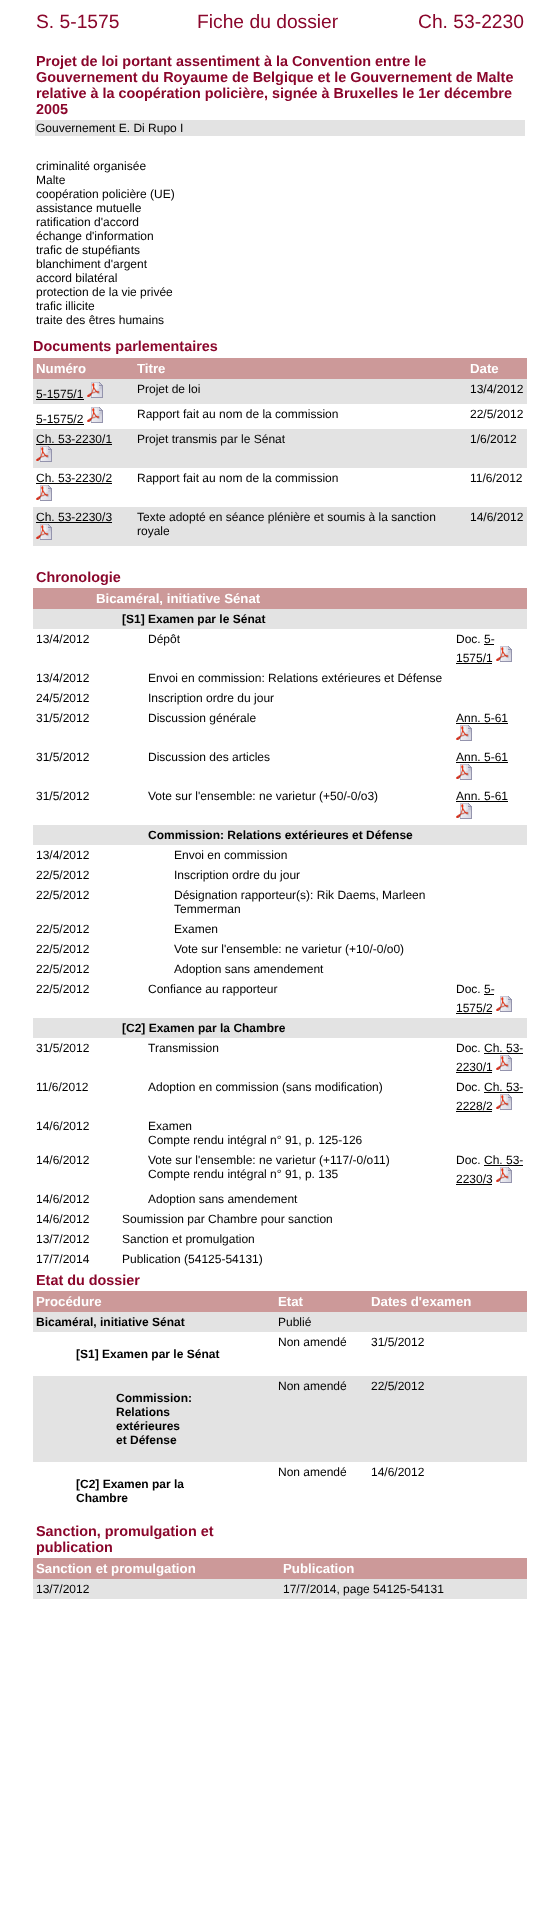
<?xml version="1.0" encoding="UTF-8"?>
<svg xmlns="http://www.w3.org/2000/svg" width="560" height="1925">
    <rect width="100%" height="100%" fill="#FFFFFF"/>
    <text x="36" y="28" font-family="Liberation Sans" font-size="19.25" fill="#8A062B">S. 5-1575</text>
    <text x="197" y="28" font-family="Liberation Sans" font-size="19.25" fill="#8A062B">Fiche du dossier</text>
    <text x="418" y="28" font-family="Liberation Sans" font-size="19.25" fill="#8A062B">Ch. 53-2230</text>
    <text font-family="Liberation Sans" font-size="14.4" font-weight="700" fill="#8A062B">
        <tspan x="36" y="66">Projet de loi portant assentiment à la Convention entre le</tspan>
        <tspan x="36" y="82">Gouvernement du Royaume de Belgique et le Gouvernement de Malte</tspan>
        <tspan x="36" y="98">relative à la coopération policière, signée à Bruxelles le 1er décembre</tspan>
        <tspan x="36" y="114">2005</tspan>
    </text>
    <rect x="35" y="120" width="490" height="16" fill="#E3E3E3"/>
    <text x="36" y="132" font-family="Liberation Sans" font-size="12" fill="#000000">Gouvernement E. Di Rupo I</text>
    <text font-family="Liberation Sans" font-size="12" fill="#000000">
        <tspan x="36" y="170">criminalité organisée</tspan>
        <tspan x="36" y="184">Malte</tspan>
        <tspan x="36" y="198">coopération policière (UE)</tspan>
        <tspan x="36" y="212">assistance mutuelle</tspan>
        <tspan x="36" y="226">ratification d'accord</tspan>
        <tspan x="36" y="240">échange d'information</tspan>
        <tspan x="36" y="254">trafic de stupéfiants</tspan>
        <tspan x="36" y="268">blanchiment d'argent</tspan>
        <tspan x="36" y="282">accord bilatéral</tspan>
        <tspan x="36" y="296">protection de la vie privée</tspan>
        <tspan x="36" y="310">trafic illicite</tspan>
        <tspan x="36" y="324">traite des êtres humains</tspan>
    </text>
    <text x="33" y="351" font-family="Liberation Sans" font-size="14.4" font-weight="700" fill="#8A062B">Documents parlementaires</text>
    <rect x="33" y="358" width="494" height="21" fill="#CC9999"/>
    <text x="36" y="373" font-family="Liberation Sans" font-size="13.25" font-weight="700" fill="#FFFFFF">Numéro</text>
    <text x="137" y="373" font-family="Liberation Sans" font-size="13.25" font-weight="700" fill="#FFFFFF">Titre</text>
    <text x="470" y="373" font-family="Liberation Sans" font-size="13.25" font-weight="700" fill="#FFFFFF">Date</text>
    <rect x="33" y="379" width="494" height="25" fill="#E3E3E3"/>
    <text x="36" y="398" font-family="Liberation Sans" font-size="12" fill="#000000">5-1575/1</text>
    <rect x="36" y="399" width="48" height="1" fill="#000000"/>
    <image x="87" y="382" width="16" height="16" href="img_01.png"/>
    <text x="137" y="393" font-family="Liberation Sans" font-size="12" fill="#000000">Projet de loi</text>
    <text x="470" y="393" font-family="Liberation Sans" font-size="12" fill="#000000">13/4/2012</text>
    <text x="36" y="423" font-family="Liberation Sans" font-size="12" fill="#000000">5-1575/2</text>
    <rect x="36" y="424" width="48" height="1" fill="#000000"/>
    <image x="87" y="407" width="16" height="16" href="img_02.png"/>
    <text x="137" y="418" font-family="Liberation Sans" font-size="12" fill="#000000">Rapport fait au nom de la commission</text>
    <text x="470" y="418" font-family="Liberation Sans" font-size="12" fill="#000000">22/5/2012</text>
    <rect x="33" y="429" width="494" height="39" fill="#E3E3E3"/>
    <text x="36" y="443" font-family="Liberation Sans" font-size="12" fill="#000000">Ch. 53-2230/1</text>
    <rect x="36" y="444" width="76" height="1" fill="#000000"/>
    <image x="36" y="446" width="16" height="16" href="img_01.png"/>
    <text x="137" y="443" font-family="Liberation Sans" font-size="12" fill="#000000">Projet transmis par le Sénat</text>
    <text x="470" y="443" font-family="Liberation Sans" font-size="12" fill="#000000">1/6/2012</text>
    <text x="36" y="482" font-family="Liberation Sans" font-size="12" fill="#000000">Ch. 53-2230/2</text>
    <rect x="36" y="483" width="76" height="1" fill="#000000"/>
    <image x="36" y="485" width="16" height="16" href="img_02.png"/>
    <text x="137" y="482" font-family="Liberation Sans" font-size="12" fill="#000000">Rapport fait au nom de la commission</text>
    <text x="470" y="482" font-family="Liberation Sans" font-size="12" fill="#000000">11/6/2012</text>
    <rect x="33" y="507" width="494" height="39" fill="#E3E3E3"/>
    <text x="36" y="521" font-family="Liberation Sans" font-size="12" fill="#000000">Ch. 53-2230/3</text>
    <rect x="36" y="522" width="76" height="1" fill="#000000"/>
    <image x="36" y="524" width="16" height="16" href="img_01.png"/>
    <text font-family="Liberation Sans" font-size="12" fill="#000000">
        <tspan x="137" y="521">Texte adopté en séance plénière et soumis à la sanction</tspan>
        <tspan x="137" y="535">royale</tspan>
    </text>
    <text x="470" y="521" font-family="Liberation Sans" font-size="12" fill="#000000">14/6/2012</text>
    <text x="36" y="582" font-family="Liberation Sans" font-size="14.4" font-weight="700" fill="#8A062B">Chronologie</text>
    <rect x="33" y="588" width="494" height="21" fill="#CC9999"/>
    <text x="96" y="603" font-family="Liberation Sans" font-size="13.25" font-weight="700" fill="#FFFFFF">Bicaméral, initiative Sénat</text>
    <rect x="33" y="609" width="494" height="20" fill="#E3E3E3"/>
    <text x="122" y="623" font-family="Liberation Sans" font-size="12" font-weight="700" fill="#000000">[S1] Examen par le Sénat</text>
    <text x="36" y="643" font-family="Liberation Sans" font-size="12" fill="#000000">13/4/2012</text>
    <text x="148" y="643" font-family="Liberation Sans" font-size="12" fill="#000000">Dépôt</text>
    <text font-family="Liberation Sans" font-size="12" fill="#000000">
        <tspan x="456" y="643">Doc. 5-</tspan>
        <tspan x="456" y="662">1575/1</tspan>
    </text>
    <rect x="484" y="644" width="10" height="1" fill="#000000"/>
    <rect x="456" y="663" width="36" height="1" fill="#000000"/>
    <image x="496" y="646" width="16" height="16" href="img_02.png"/>
    <text x="36" y="682" font-family="Liberation Sans" font-size="12" fill="#000000">13/4/2012</text>
    <text x="148" y="682" font-family="Liberation Sans" font-size="12" fill="#000000">Envoi en commission: Relations extérieures et Défense</text>
    <text x="36" y="702" font-family="Liberation Sans" font-size="12" fill="#000000">24/5/2012</text>
    <text x="148" y="702" font-family="Liberation Sans" font-size="12" fill="#000000">Inscription ordre du jour</text>
    <text x="36" y="722" font-family="Liberation Sans" font-size="12" fill="#000000">31/5/2012</text>
    <text x="148" y="722" font-family="Liberation Sans" font-size="12" fill="#000000">Discussion générale</text>
    <text x="456" y="722" font-family="Liberation Sans" font-size="12" fill="#000000">Ann. 5-61</text>
    <rect x="456" y="723" width="52" height="1" fill="#000000"/>
    <image x="456" y="725" width="16" height="16" href="img_02.png"/>
    <text x="36" y="761" font-family="Liberation Sans" font-size="12" fill="#000000">31/5/2012</text>
    <text x="148" y="761" font-family="Liberation Sans" font-size="12" fill="#000000">Discussion des articles</text>
    <text x="456" y="761" font-family="Liberation Sans" font-size="12" fill="#000000">Ann. 5-61</text>
    <rect x="456" y="762" width="52" height="1" fill="#000000"/>
    <image x="456" y="764" width="16" height="16" href="img_02.png"/>
    <text x="36" y="800" font-family="Liberation Sans" font-size="12" fill="#000000">31/5/2012</text>
    <text x="148" y="800" font-family="Liberation Sans" font-size="12" fill="#000000">Vote sur l'ensemble: ne varietur (+50/-0/o3)</text>
    <text x="456" y="800" font-family="Liberation Sans" font-size="12" fill="#000000">Ann. 5-61</text>
    <rect x="456" y="801" width="52" height="1" fill="#000000"/>
    <image x="456" y="803" width="16" height="16" href="img_02.png"/>
    <rect x="33" y="825" width="494" height="20" fill="#E3E3E3"/>
    <text x="148" y="839" font-family="Liberation Sans" font-size="12" font-weight="700" fill="#000000">Commission: Relations extérieures et Défense</text>
    <text x="36" y="859" font-family="Liberation Sans" font-size="12" fill="#000000">13/4/2012</text>
    <text x="174" y="859" font-family="Liberation Sans" font-size="12" fill="#000000">Envoi en commission</text>
    <text x="36" y="879" font-family="Liberation Sans" font-size="12" fill="#000000">22/5/2012</text>
    <text x="174" y="879" font-family="Liberation Sans" font-size="12" fill="#000000">Inscription ordre du jour</text>
    <text x="36" y="899" font-family="Liberation Sans" font-size="12" fill="#000000">22/5/2012</text>
    <text font-family="Liberation Sans" font-size="12" fill="#000000">
        <tspan x="174" y="899">Désignation rapporteur(s): Rik Daems, Marleen</tspan>
        <tspan x="174" y="913">Temmerman</tspan>
    </text>
    <text x="36" y="933" font-family="Liberation Sans" font-size="12" fill="#000000">22/5/2012</text>
    <text x="174" y="933" font-family="Liberation Sans" font-size="12" fill="#000000">Examen</text>
    <text x="36" y="953" font-family="Liberation Sans" font-size="12" fill="#000000">22/5/2012</text>
    <text x="174" y="953" font-family="Liberation Sans" font-size="12" fill="#000000">Vote sur l'ensemble: ne varietur (+10/-0/o0)</text>
    <text x="36" y="973" font-family="Liberation Sans" font-size="12" fill="#000000">22/5/2012</text>
    <text x="174" y="973" font-family="Liberation Sans" font-size="12" fill="#000000">Adoption sans amendement</text>
    <text x="36" y="993" font-family="Liberation Sans" font-size="12" fill="#000000">22/5/2012</text>
    <text x="148" y="993" font-family="Liberation Sans" font-size="12" fill="#000000">Confiance au rapporteur</text>
    <text font-family="Liberation Sans" font-size="12" fill="#000000">
        <tspan x="456" y="993">Doc. 5-</tspan>
        <tspan x="456" y="1012">1575/2</tspan>
    </text>
    <rect x="484" y="994" width="10" height="1" fill="#000000"/>
    <rect x="456" y="1013" width="36" height="1" fill="#000000"/>
    <image x="496" y="996" width="16" height="16" href="img_02.png"/>
    <rect x="33" y="1018" width="494" height="20" fill="#E3E3E3"/>
    <text x="122" y="1032" font-family="Liberation Sans" font-size="12" font-weight="700" fill="#000000">[C2] Examen par la Chambre</text>
    <text x="36" y="1052" font-family="Liberation Sans" font-size="12" fill="#000000">31/5/2012</text>
    <text x="148" y="1052" font-family="Liberation Sans" font-size="12" fill="#000000">Transmission</text>
    <text font-family="Liberation Sans" font-size="12" fill="#000000">
        <tspan x="456" y="1052">Doc. Ch. 53-</tspan>
        <tspan x="456" y="1071">2230/1</tspan>
    </text>
    <rect x="484" y="1053" width="39" height="1" fill="#000000"/>
    <rect x="456" y="1072" width="36" height="1" fill="#000000"/>
    <image x="496" y="1055" width="16" height="16" href="img_02.png"/>
    <text x="36" y="1091" font-family="Liberation Sans" font-size="12" fill="#000000">11/6/2012</text>
    <text x="148" y="1091" font-family="Liberation Sans" font-size="12" fill="#000000">Adoption en commission (sans modification)</text>
    <text font-family="Liberation Sans" font-size="12" fill="#000000">
        <tspan x="456" y="1091">Doc. Ch. 53-</tspan>
        <tspan x="456" y="1110">2228/2</tspan>
    </text>
    <rect x="484" y="1092" width="39" height="1" fill="#000000"/>
    <rect x="456" y="1111" width="36" height="1" fill="#000000"/>
    <image x="496" y="1094" width="16" height="16" href="img_02.png"/>
    <text x="36" y="1130" font-family="Liberation Sans" font-size="12" fill="#000000">14/6/2012</text>
    <text font-family="Liberation Sans" font-size="12" fill="#000000">
        <tspan x="148" y="1130">Examen</tspan>
        <tspan x="148" y="1144">Compte rendu intégral n° 91, p. 125-126</tspan>
    </text>
    <text x="36" y="1164" font-family="Liberation Sans" font-size="12" fill="#000000">14/6/2012</text>
    <text font-family="Liberation Sans" font-size="12" fill="#000000">
        <tspan x="148" y="1164">Vote sur l'ensemble: ne varietur (+117/-0/o11)</tspan>
        <tspan x="148" y="1178">Compte rendu intégral n° 91, p. 135</tspan>
    </text>
    <text font-family="Liberation Sans" font-size="12" fill="#000000">
        <tspan x="456" y="1164">Doc. Ch. 53-</tspan>
        <tspan x="456" y="1183">2230/3</tspan>
    </text>
    <rect x="484" y="1165" width="39" height="1" fill="#000000"/>
    <rect x="456" y="1184" width="36" height="1" fill="#000000"/>
    <image x="496" y="1167" width="16" height="16" href="img_02.png"/>
    <text x="36" y="1203" font-family="Liberation Sans" font-size="12" fill="#000000">14/6/2012</text>
    <text x="148" y="1203" font-family="Liberation Sans" font-size="12" fill="#000000">Adoption sans amendement</text>
    <text x="36" y="1223" font-family="Liberation Sans" font-size="12" fill="#000000">14/6/2012</text>
    <text x="122" y="1223" font-family="Liberation Sans" font-size="12" fill="#000000">Soumission par Chambre pour sanction</text>
    <text x="36" y="1243" font-family="Liberation Sans" font-size="12" fill="#000000">13/7/2012</text>
    <text x="122" y="1243" font-family="Liberation Sans" font-size="12" fill="#000000">Sanction et promulgation</text>
    <text x="36" y="1263" font-family="Liberation Sans" font-size="12" fill="#000000">17/7/2014</text>
    <text x="122" y="1263" font-family="Liberation Sans" font-size="12" fill="#000000">Publication (54125-54131)</text>
    <text x="36" y="1285" font-family="Liberation Sans" font-size="14.4" font-weight="700" fill="#8A062B">Etat du dossier</text>
    <rect x="33" y="1291" width="494" height="21" fill="#CC9999"/>
    <text x="36" y="1306" font-family="Liberation Sans" font-size="13.25" font-weight="700" fill="#FFFFFF">Procédure</text>
    <text x="278" y="1306" font-family="Liberation Sans" font-size="13.25" font-weight="700" fill="#FFFFFF">Etat</text>
    <text x="371" y="1306" font-family="Liberation Sans" font-size="13.25" font-weight="700" fill="#FFFFFF">Dates d'examen</text>
    <rect x="33" y="1312" width="494" height="20" fill="#E3E3E3"/>
    <text x="36" y="1326" font-family="Liberation Sans" font-size="12" font-weight="700" fill="#000000">Bicaméral, initiative Sénat</text>
    <text font-family="Liberation Sans" font-size="12" fill="#000000">
        <tspan x="278" y="1326">Publié</tspan>
        <tspan x="278" y="1346">Non amendé</tspan>
    </text>
    <text x="371" y="1346" font-family="Liberation Sans" font-size="12" fill="#000000">31/5/2012</text>
    <text x="76" y="1358" font-family="Liberation Sans" font-size="12" font-weight="700" fill="#000000">[S1] Examen par le Sénat</text>
    <rect x="33" y="1376" width="494" height="86" fill="#E3E3E3"/>
    <text x="278" y="1390" font-family="Liberation Sans" font-size="12" fill="#000000">Non amendé</text>
    <text x="371" y="1390" font-family="Liberation Sans" font-size="12" fill="#000000">22/5/2012</text>
    <text font-family="Liberation Sans" font-size="12" font-weight="700" fill="#000000">
        <tspan x="116" y="1402">Commission:</tspan>
        <tspan x="116" y="1416">Relations</tspan>
        <tspan x="116" y="1430">extérieures</tspan>
        <tspan x="116" y="1444">et Défense</tspan>
    </text>
    <text x="278" y="1476" font-family="Liberation Sans" font-size="12" fill="#000000">Non amendé</text>
    <text x="371" y="1476" font-family="Liberation Sans" font-size="12" fill="#000000">14/6/2012</text>
    <text font-family="Liberation Sans" font-size="12" font-weight="700" fill="#000000">
        <tspan x="76" y="1488">[C2] Examen par la</tspan>
        <tspan x="76" y="1502">Chambre</tspan>
    </text>
    <text font-family="Liberation Sans" font-size="14.4" font-weight="700" fill="#8A062B">
        <tspan x="36" y="1536">Sanction, promulgation et</tspan>
        <tspan x="36" y="1552">publication</tspan>
    </text>
    <rect x="33" y="1558" width="494" height="21" fill="#CC9999"/>
    <text x="36" y="1573" font-family="Liberation Sans" font-size="13.25" font-weight="700" fill="#FFFFFF">Sanction et promulgation</text>
    <text x="283" y="1573" font-family="Liberation Sans" font-size="13.25" font-weight="700" fill="#FFFFFF">Publication</text>
    <rect x="33" y="1579" width="494" height="20" fill="#E3E3E3"/>
    <text x="36" y="1593" font-family="Liberation Sans" font-size="12" fill="#000000">13/7/2012</text>
    <text x="283" y="1593" font-family="Liberation Sans" font-size="12" fill="#000000">17/7/2014, page 54125-54131</text>
</svg>
